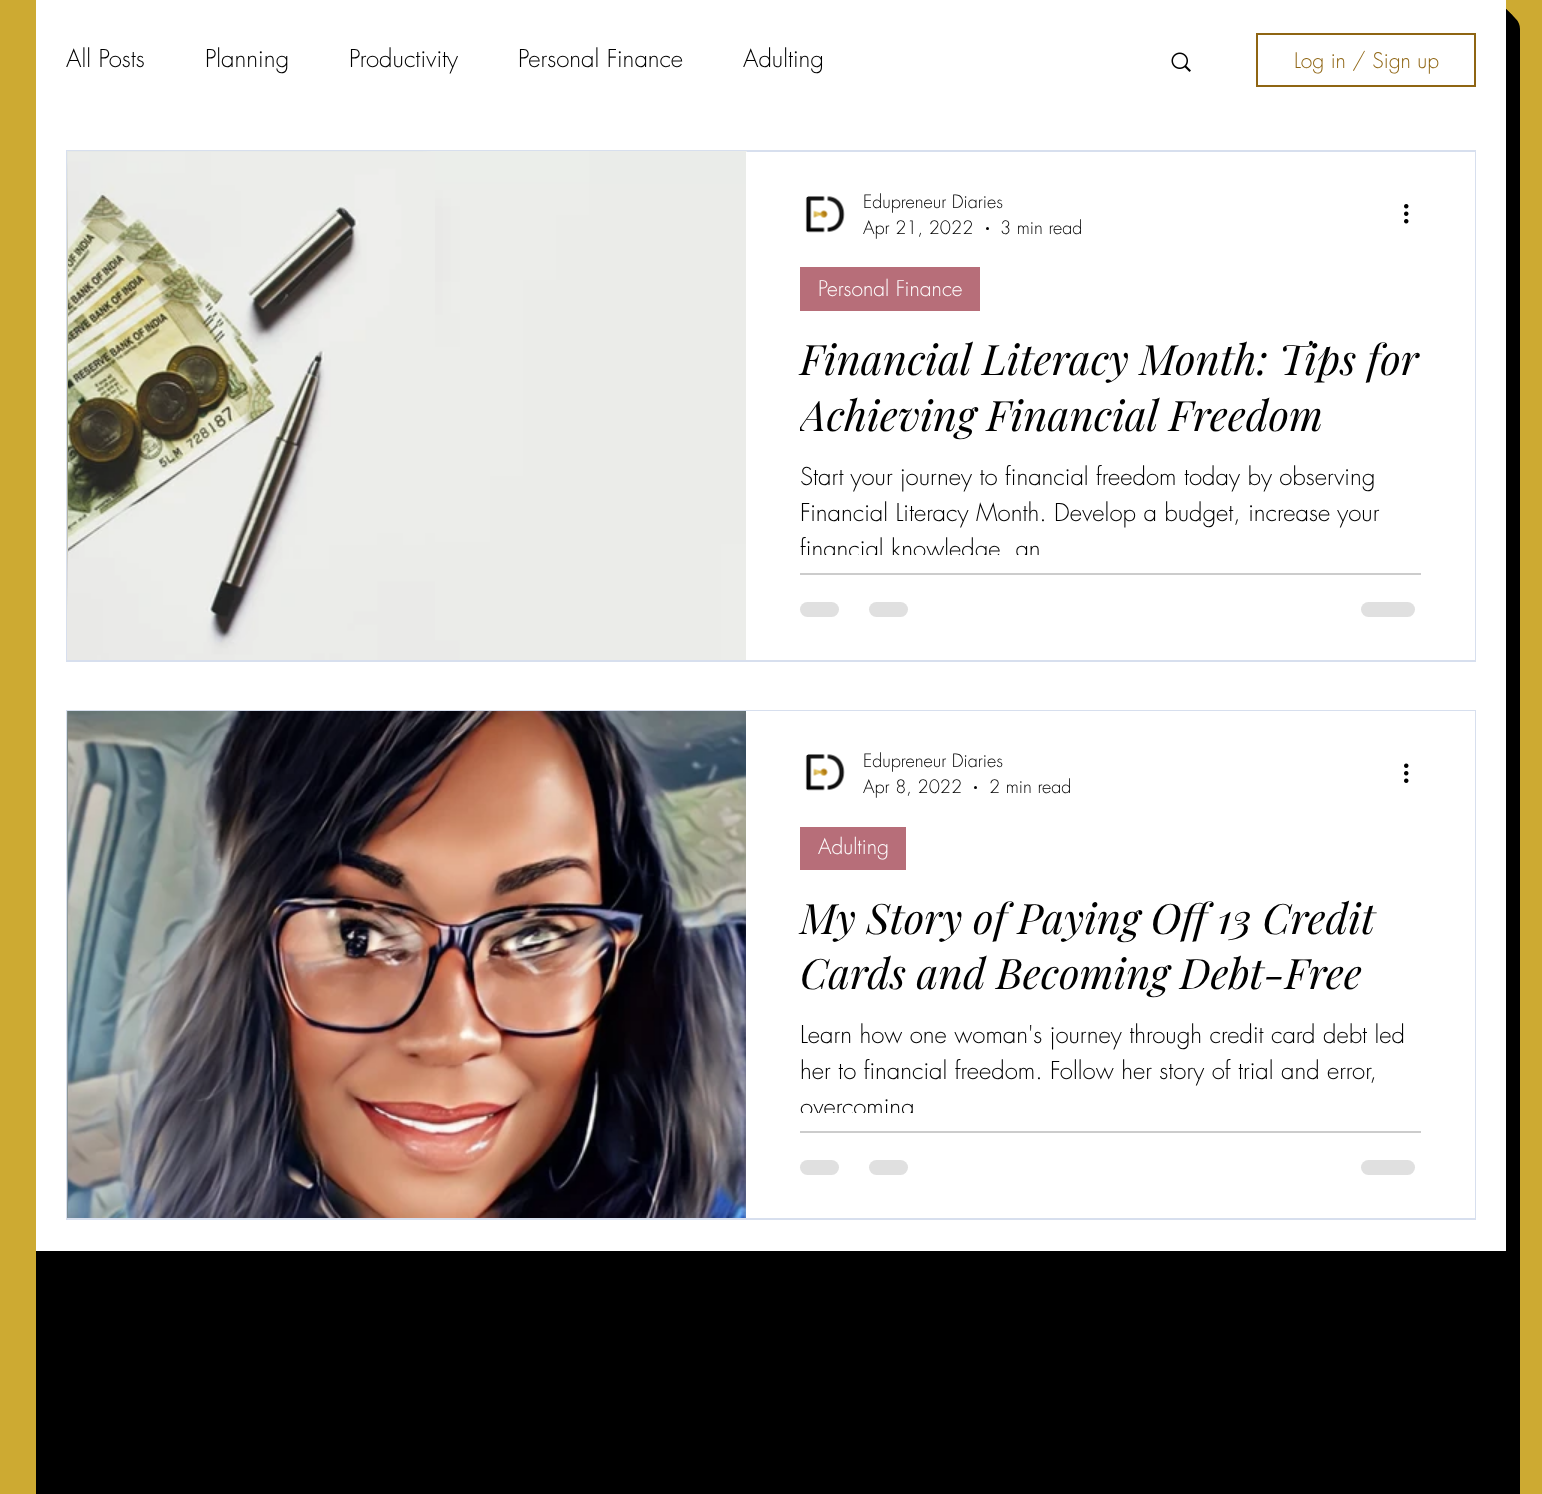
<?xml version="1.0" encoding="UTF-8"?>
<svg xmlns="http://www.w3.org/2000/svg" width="1542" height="1494">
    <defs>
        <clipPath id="clip1"><rect x="800" y="330" width="621" height="111"/></clipPath>
        <clipPath id="clip2"><rect x="800" y="459" width="621" height="96"/></clipPath>
        <clipPath id="clip3"><rect x="800" y="1019" width="621" height="94"/></clipPath>
    </defs>
    <rect width="100%" height="100%" fill="#CDAA32"/>
    <path d="M 50 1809 C 51 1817 57 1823 65 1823 H 1505 C 1513 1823 1520 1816 1520 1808 V 29 C 1520 21 1514 15 1506 14 V 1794 C 1506 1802 1499 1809 1491 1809 Z" fill="#000000"/>
    <path d="M 47 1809 C 49 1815 55 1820 62 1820 H 1502 C 1510 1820 1517 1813 1517 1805 V 26 C 1517 19 1512 13 1506 11 V 15 V 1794 C 1506 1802 1499 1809 1491 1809 H 51 Z" fill="#000000"/>
    <path d="M 45 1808 C 47 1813 53 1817 59 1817 H 1499 C 1507 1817 1514 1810 1514 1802 V 23 C 1514 17 1510 11 1505 9 C 1506 11 1506 13 1506 15 V 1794 C 1506 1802 1499 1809 1491 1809 H 51 C 49 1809 47 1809 45 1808 Z" fill="#000000"/>
    <path d="M 43 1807 C 46 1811 51 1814 56 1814 H 1496 C 1504 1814 1511 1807 1511 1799 V 20 C 1511 15 1508 10 1504 7 C 1505 9 1506 12 1506 15 V 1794 C 1506 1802 1499 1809 1491 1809 H 51 C 48 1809 45 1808 43 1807 Z" fill="#000000"/>
    <path d="M 41 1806 C 44 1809 48 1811 53 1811 H 1493 C 1501 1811 1508 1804 1508 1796 V 17 C 1508 12 1506 8 1503 5 C 1505 8 1506 11 1506 15 V 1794 C 1506 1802 1499 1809 1491 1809 H 51 C 47 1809 44 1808 41 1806 Z" fill="#000000"/>
    <rect x="36" y="1251" width="1470" height="243" fill="#000000"/>
    <rect x="36" y="0" width="1470" height="1251" fill="#FFFFFF"/>
    <text x="66" y="67" font-family="futura" font-size="24" font-weight="300" fill="#000000">All Posts</text>
    <text x="205" y="67" font-family="futura" font-size="24" font-weight="300" fill="#000000">Planning</text>
    <text x="349" y="67" font-family="futura" font-size="24" font-weight="300" fill="#000000">Productivity</text>
    <text x="518" y="67" font-family="futura" font-size="24" font-weight="300" fill="#000000">Personal Finance</text>
    <text x="743" y="67" font-family="futura" font-size="24" font-weight="300" fill="#000000">Adulting</text>
    <image x="1171" y="52" width="20" height="20" href="img_01.png"/>
    <rect x="1257" y="34" width="218" height="52" fill="none" stroke="#8F6513" stroke-width="2"/>
    <text x="1294" y="68" font-family="futura" font-size="21" font-weight="300" fill="#8F6513">Log in / Sign up</text>
    <rect x="67" y="151" width="1408" height="510" fill="none" stroke="#D7DFEE" stroke-width="2"/>
    <image x="67" y="151" width="680" height="509" href="img_02.png"/>
    <image x="68" y="152" width="367" height="508" href="img_03.png"/>
    <rect x="746" y="152" width="729" height="508" fill="#FFFFFF"/>
    <image x="805" y="196" width="40" height="37" href="img_04.png"/>
    <text font-family="futura" font-size="18" font-weight="300" fill="#000000">
        <tspan x="863" y="208">Edupreneur Diaries</tspan>
        <tspan x="863" y="234">Apr 21, 2022</tspan>
    </text>
    <circle cx="987.5" cy="228.5" r="1.5" fill="#000000"/>
    <text x="1000" y="234" font-family="futura" font-size="18" font-weight="300" fill="#000000">3 min read</text>
    <image x="1404" y="204" width="5" height="20" href="img_05.png"/>
    <rect x="800" y="267" width="180" height="44" fill="#B76E79"/>
    <text x="818" y="296" font-family="futura" font-size="21" font-weight="300" fill="#FFFFFF">Personal Finance</text>
    <text x="800" y="375" font-family="Playfair Display" font-size="42" font-style="italic" fill="#000000">Financial Literacy Month: Tips for</text>
    <g clip-path="url(#clip1)">
        <text x="800" y="431" font-family="Playfair Display" font-size="42" font-style="italic" fill="#000000">Achieving Financial Freedom</text>
    </g>
    <text font-family="futura" font-size="24" font-weight="300" fill="#000000">
        <tspan x="800" y="485">Start your journey to financial freedom today by observing</tspan>
        <tspan x="800" y="521">Financial Literacy Month. Develop a budget, increase your</tspan>
    </text>
    <g clip-path="url(#clip2)">
        <text x="800" y="557" font-family="futura" font-size="24" font-weight="300" fill="#000000">financial knowledge, an</text>
    </g>
    <rect x="800" y="573" width="621" height="2" fill="#CCCCCC"/>
    <rect x="800" y="602" width="39" height="15" rx="7.5" fill="#E0E0E0"/>
    <rect x="869" y="602" width="39" height="15" rx="7.5" fill="#E0E0E0"/>
    <rect x="1361" y="602" width="54" height="15" rx="7.5" fill="#E0E0E0"/>
    <rect x="67" y="711" width="1408" height="508" fill="none" stroke="#D7DFEE" stroke-width="2"/>
    <image x="67" y="711" width="1" height="507" href="img_06.png"/>
    <image x="68" y="711" width="678" height="507" href="img_07.png"/>
    <rect x="746" y="711" width="729" height="507" fill="#FFFFFF"/>
    <image x="805" y="754" width="40" height="37" href="img_04.png"/>
    <text font-family="futura" font-size="18" font-weight="300" fill="#000000">
        <tspan x="863" y="767">Edupreneur Diaries</tspan>
        <tspan x="863" y="793">Apr 8, 2022</tspan>
    </text>
    <circle cx="975.5" cy="787.5" r="1.5" fill="#000000"/>
    <text x="989" y="793" font-family="futura" font-size="18" font-weight="300" fill="#000000">2 min read</text>
    <image x="1404" y="763" width="5" height="20" href="img_08.png"/>
    <rect x="800" y="827" width="106" height="43" fill="#B76E79"/>
    <text x="818" y="854" font-family="futura" font-size="21" font-weight="300" fill="#FFFFFF">Adulting</text>
    <text font-family="Playfair Display" font-size="42" font-style="italic" fill="#000000">
        <tspan x="800" y="934">My Story of Paying Off 13 Credit</tspan>
        <tspan x="800" y="989">Cards and Becoming Debt-Free</tspan>
    </text>
    <text font-family="futura" font-size="24" font-weight="300" fill="#000000">
        <tspan x="800" y="1043">Learn how one woman's journey through credit card debt led</tspan>
        <tspan x="800" y="1079">her to financial freedom. Follow her story of trial and error,</tspan>
    </text>
    <g clip-path="url(#clip3)">
        <text x="800" y="1115" font-family="futura" font-size="24" font-weight="300" fill="#000000">overcoming</text>
    </g>
    <rect x="800" y="1131" width="621" height="2" fill="#CCCCCC"/>
    <rect x="800" y="1160" width="39" height="15" rx="7.5" fill="#E0E0E0"/>
    <rect x="869" y="1160" width="39" height="15" rx="7.5" fill="#E0E0E0"/>
    <rect x="1361" y="1160" width="54" height="15" rx="7.5" fill="#E0E0E0"/>
</svg>
